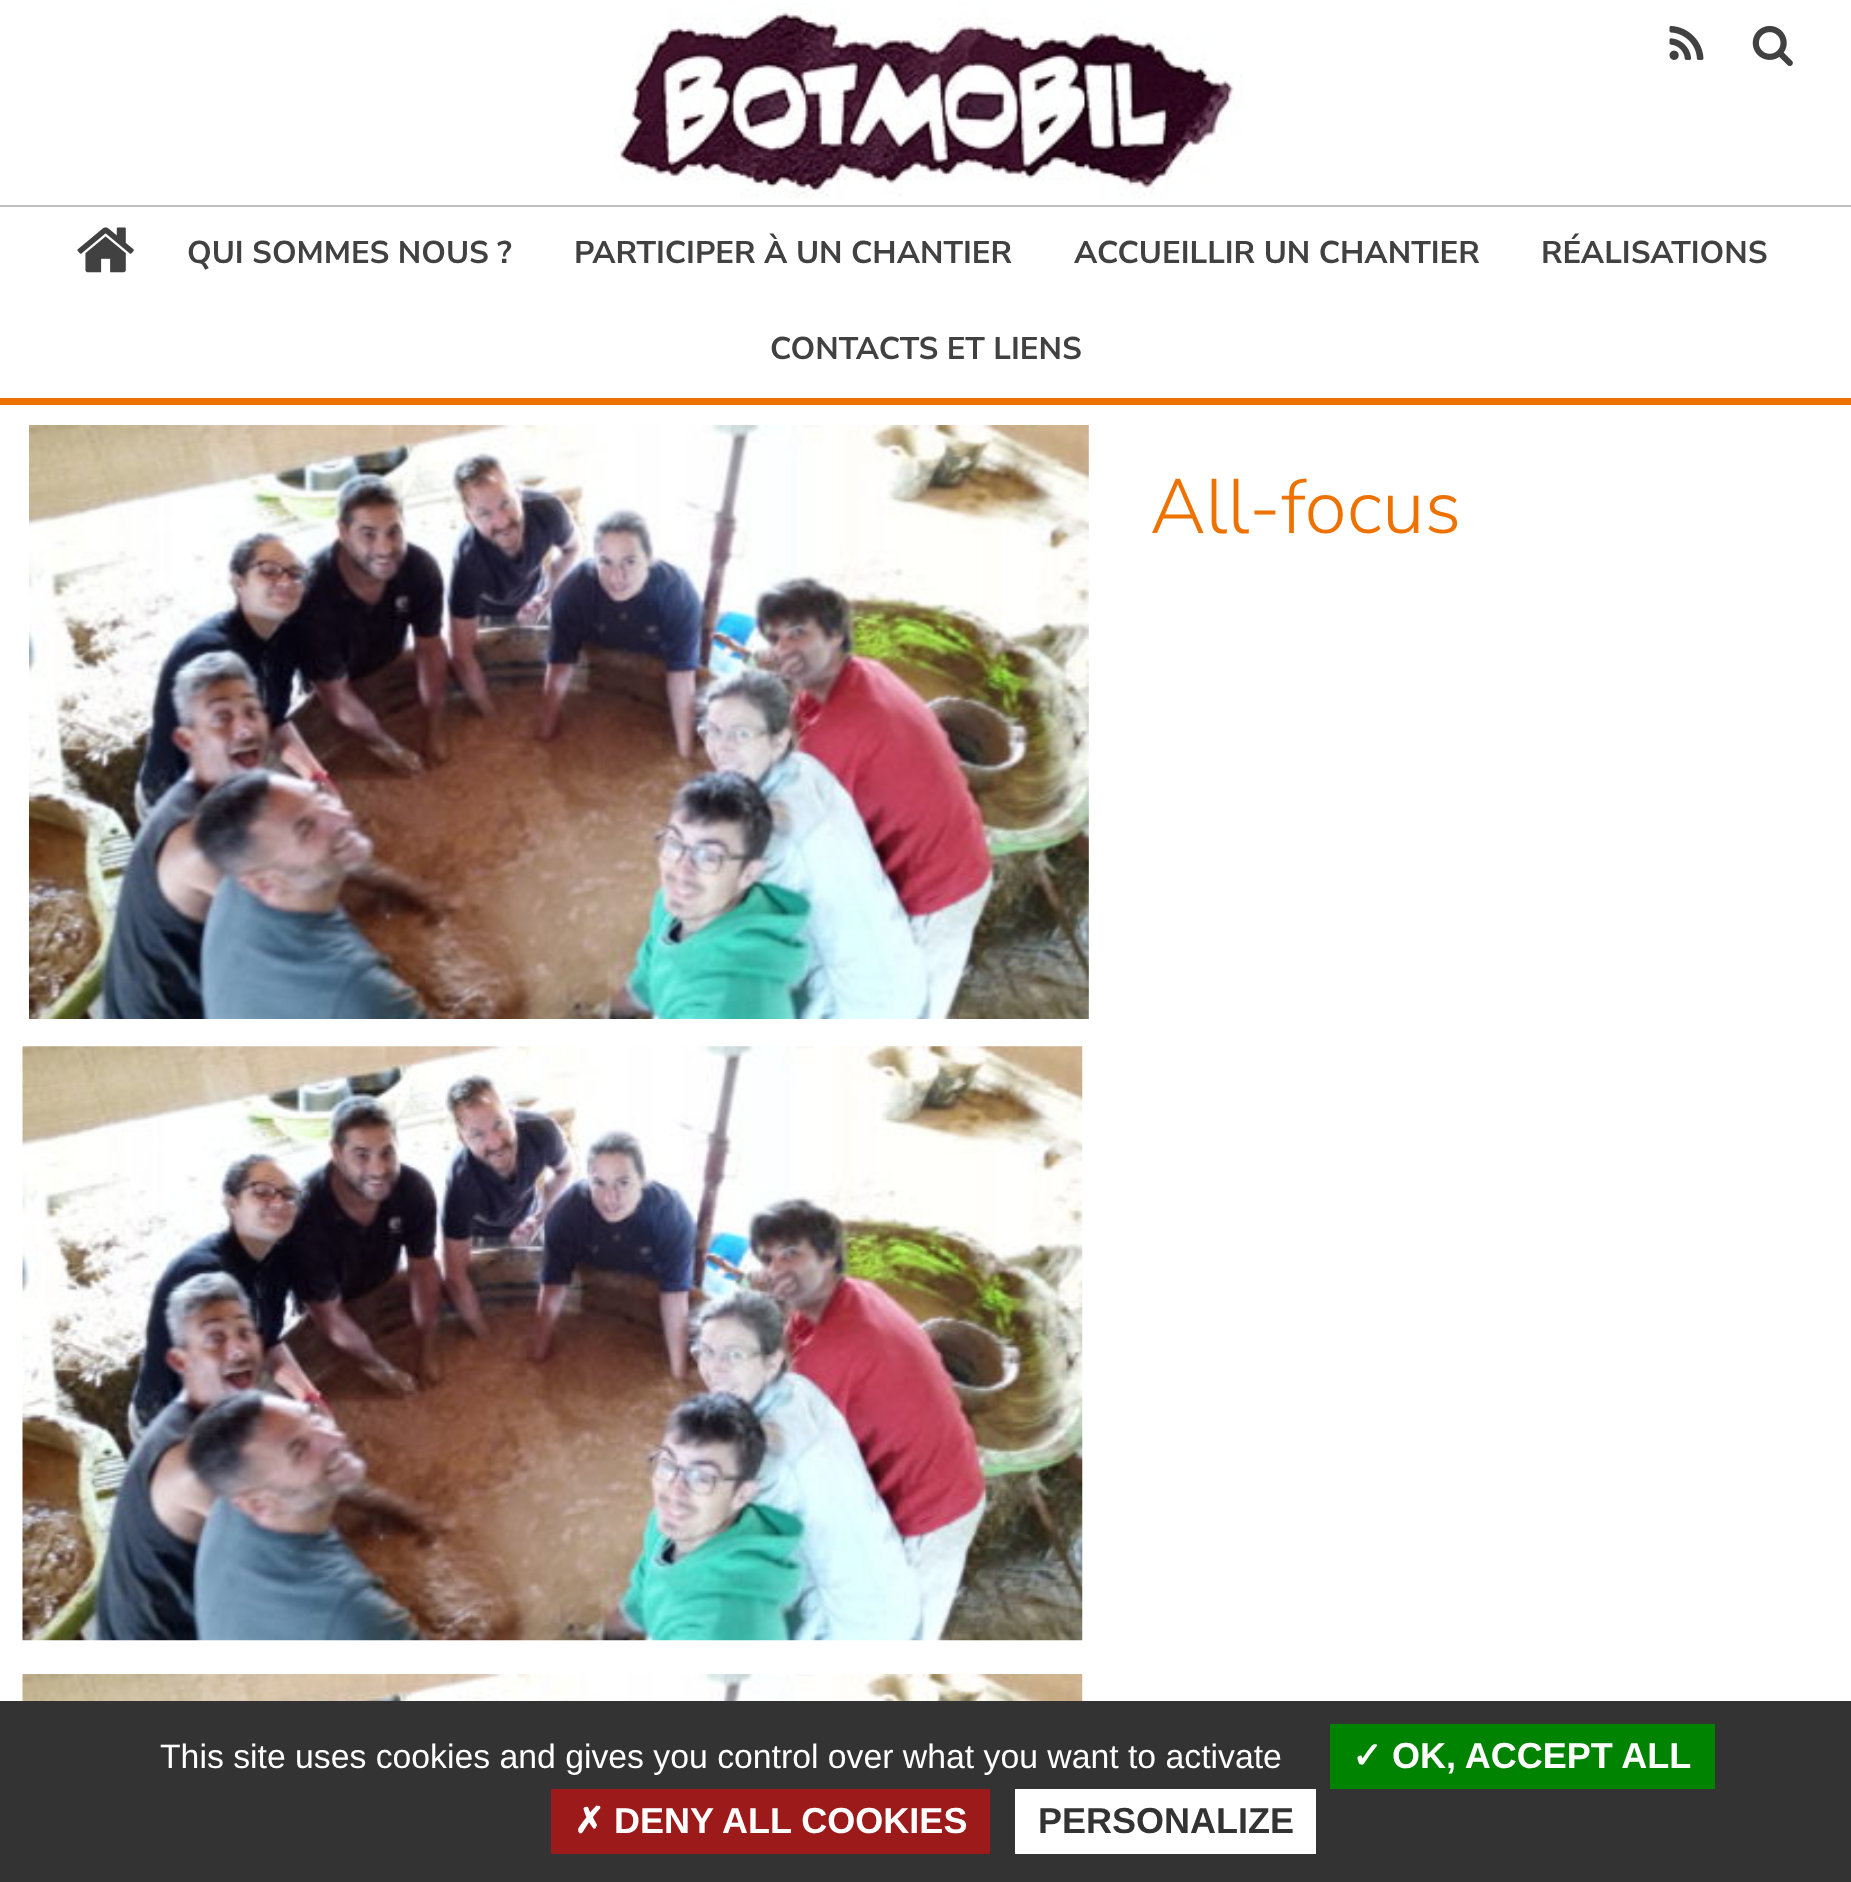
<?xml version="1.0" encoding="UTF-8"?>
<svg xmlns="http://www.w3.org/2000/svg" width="1851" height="1882">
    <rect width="100%" height="100%" fill="#FFFFFF"/>
    <rect x="0" y="398" width="1851" height="7" fill="#EE7202"/>
    <image x="614" y="3" width="630" height="196" href="img_01.png"/>
    <image x="1669" y="26" width="35" height="34" href="img_02.png"/>
    <image x="1752" y="26" width="41" height="41" href="img_03.png"/>
    <rect x="0" y="205" width="1851" height="2" fill="#C0C0C0"/>
    <image x="77" y="227" width="57" height="46" href="img_04.png"/>
    <text x="187" y="263" font-family="Nunito Sans" font-size="31.4" font-weight="700" fill="#414141">QUI SOMMES NOUS ?</text>
    <text x="574" y="263" font-family="Nunito Sans" font-size="31.4" font-weight="700" fill="#414141">PARTICIPER À UN CHANTIER</text>
    <text x="1074" y="263" font-family="Nunito Sans" font-size="31.4" font-weight="700" fill="#414141">ACCUEILLIR UN CHANTIER</text>
    <text x="1541" y="263" font-family="Nunito Sans" font-size="31.4" font-weight="700" fill="#414141">RÉALISATIONS</text>
    <text x="770" y="359" font-family="Nunito Sans" font-size="31.4" font-weight="700" fill="#414141">CONTACTS ET LIENS</text>
    <image x="29" y="425" width="1060" height="594" href="img_05.png"/>
    <text x="1150" y="533" font-family="Nunito Sans" font-size="77" font-weight="300" fill="#EE7202">All-focus</text>
    <image x="22" y="1046" width="1061" height="595" href="img_06.png"/>
    <image x="22" y="1674" width="1061" height="27" href="img_07.png"/>
    <rect x="0" y="1701" width="1851" height="181" fill="#333333"/>
    <text x="160" y="1768" font-family="Liberation Sans" font-size="33.75" fill="#FFFFFF">This site uses cookies and gives you control over what you want to activate</text>
    <rect x="1330" y="1724" width="385" height="65" fill="#008300"/>
    <text x="1352" y="1768" font-family="DejaVu Sans" font-size="36" font-weight="700" fill="#FFFFFF">✓</text>
    <text x="1392" y="1768" font-family="Liberation Sans" font-size="36" font-weight="700" fill="#FFFFFF">OK, ACCEPT ALL</text>
    <rect x="551" y="1789" width="439" height="65" fill="#9C1A1A"/>
    <text x="574" y="1833" font-family="DejaVu Sans" font-size="36" font-weight="700" fill="#FFFFFF">✗</text>
    <text x="614" y="1833" font-family="Liberation Sans" font-size="36" font-weight="700" fill="#FFFFFF">DENY ALL COOKIES</text>
    <rect x="1015" y="1789" width="301" height="65" fill="#FFFFFF"/>
    <text x="1038" y="1833" font-family="Liberation Sans" font-size="36" font-weight="700" fill="#333333">PERSONALIZE</text>
</svg>
